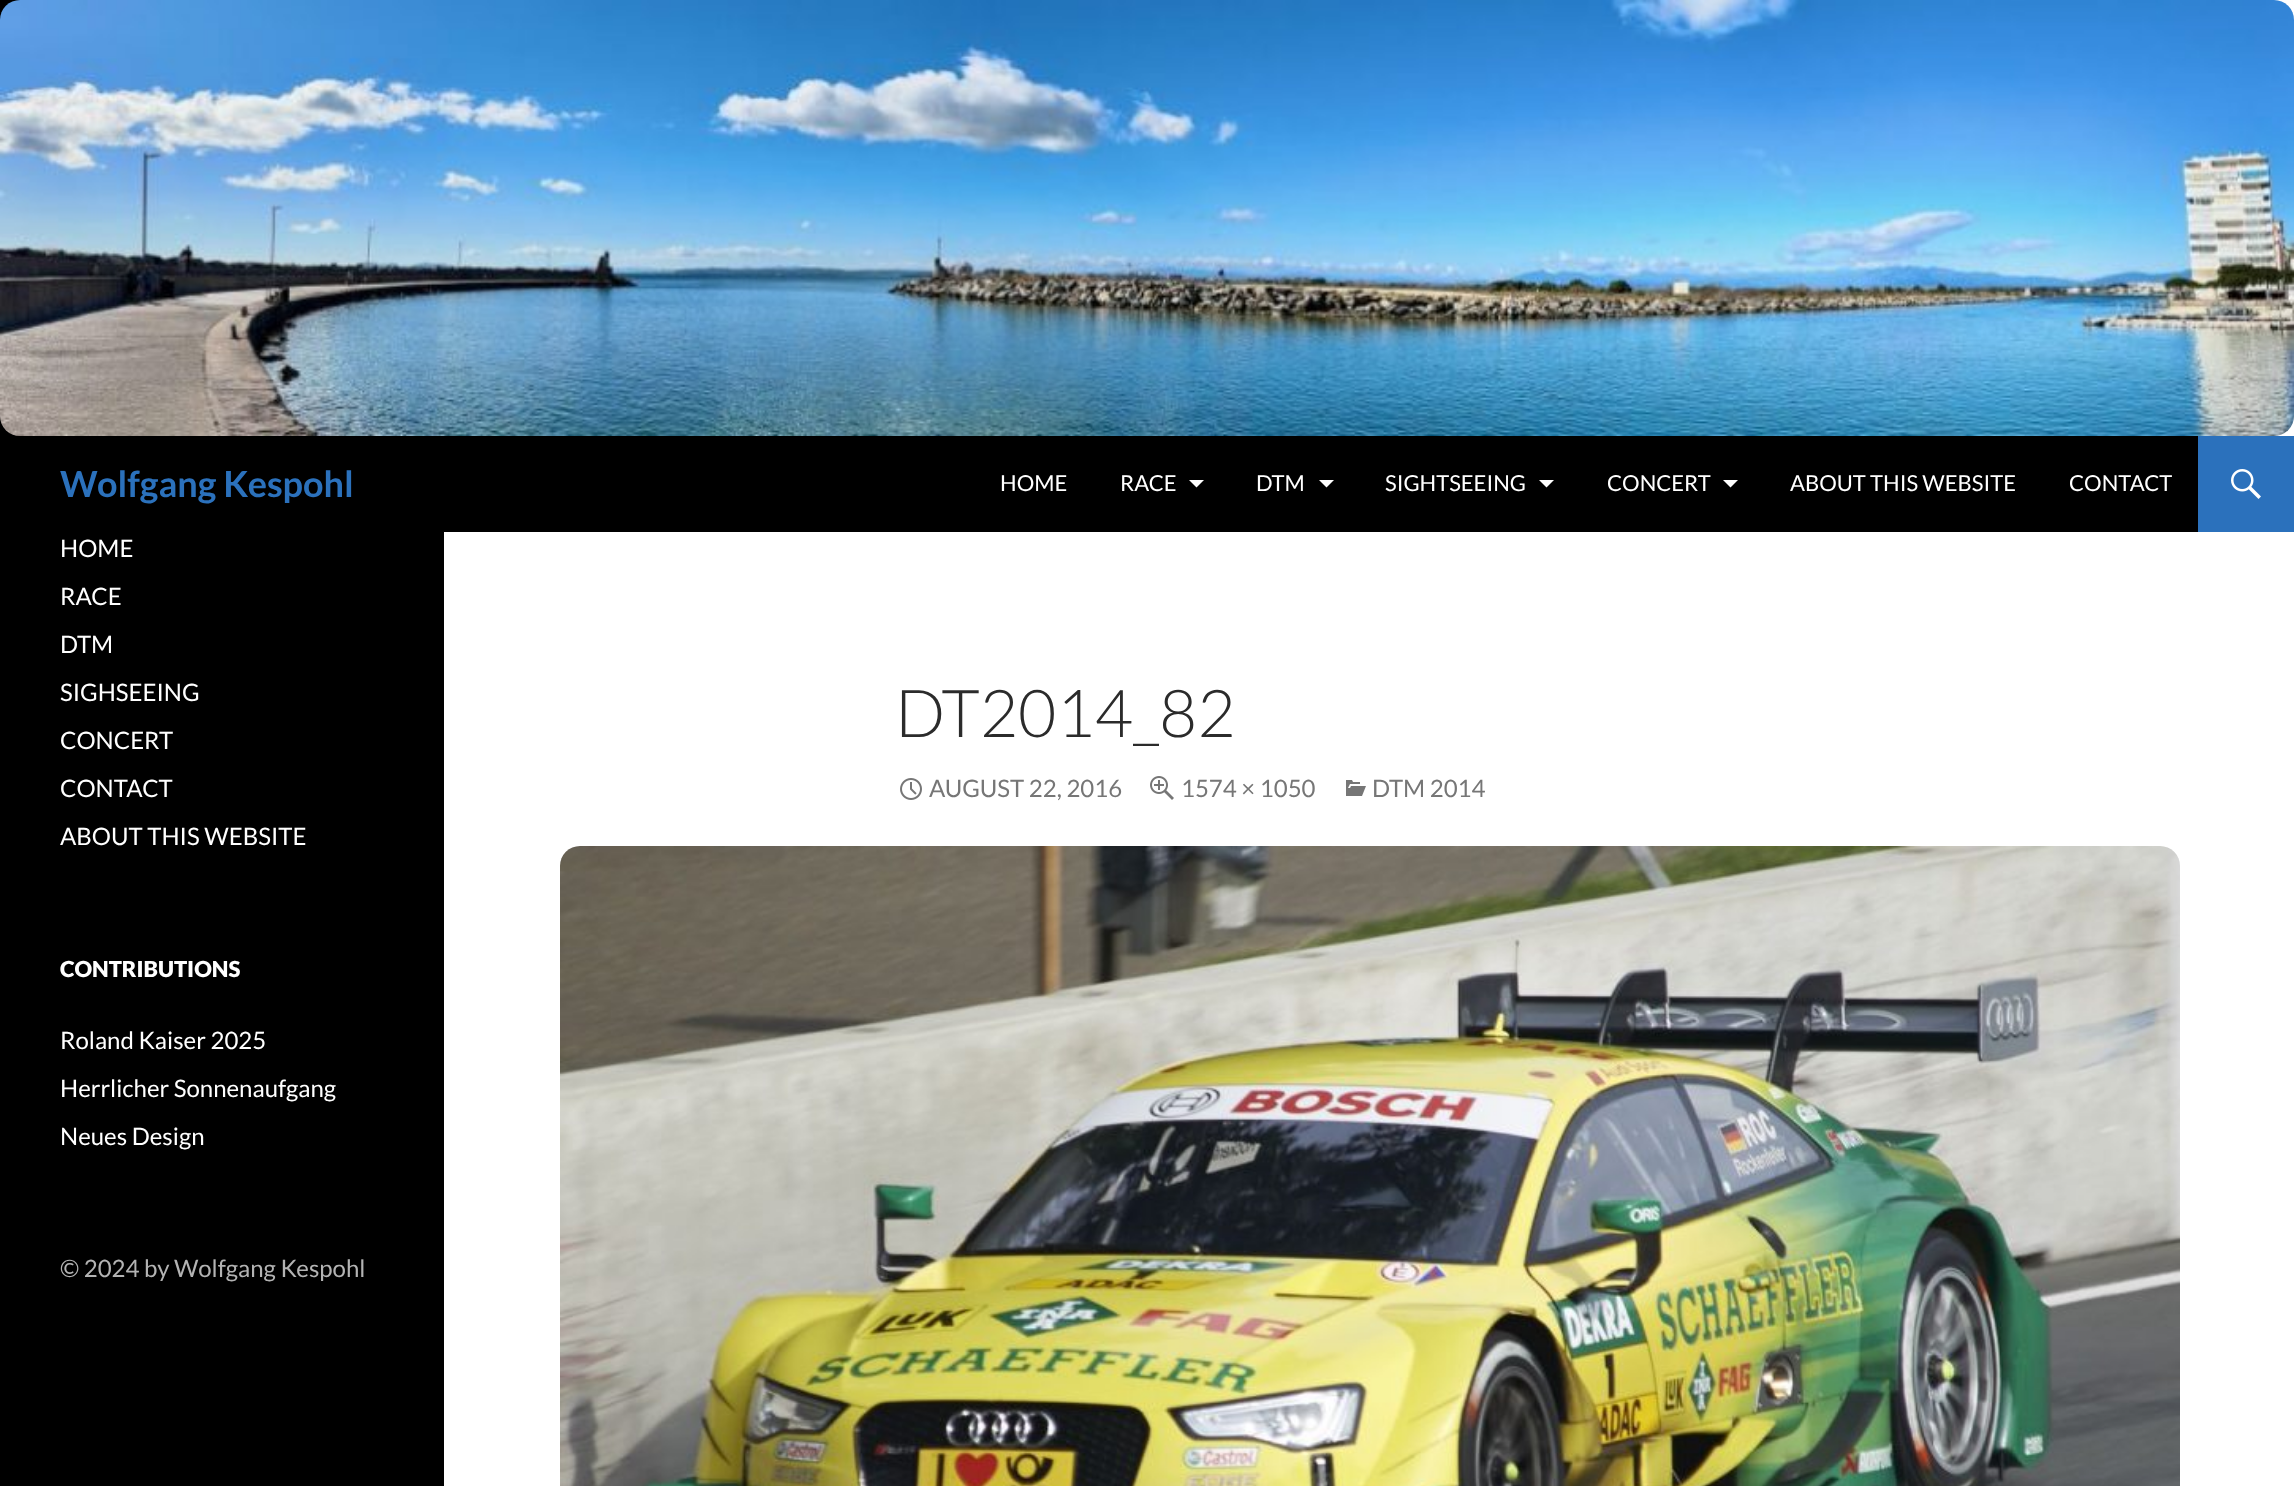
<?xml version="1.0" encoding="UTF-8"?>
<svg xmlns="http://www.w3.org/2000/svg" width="2294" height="1486">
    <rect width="100%" height="100%" fill="#FFFFFF"/>
    <rect x="0" y="0" width="444" height="1486" fill="#000000"/>
    <image x="0" y="0" width="2294" height="436" href="img_01.png"/>
    <rect x="444" y="436" width="1754" height="96" fill="#000000"/>
    <text x="60" y="497" font-family="Lato" font-size="36" font-weight="700" fill="#2B71BC">Wolfgang Kespohl</text>
    <text x="1000" y="491" font-family="Lato" font-size="22" fill="#FFFFFF">HOME</text>
    <text x="1120" y="491" font-family="Lato" font-size="22" fill="#FFFFFF">RACE</text>
    <path d="M 1189 480 L 1196.5 487.5 L 1204 480 Z" fill="#FFFFFF"/>
    <text x="1256" y="491" font-family="Lato" font-size="22" fill="#FFFFFF">DTM</text>
    <path d="M 1319 480 L 1326.5 487.5 L 1334 480 Z" fill="#FFFFFF"/>
    <text x="1385" y="491" font-family="Lato" font-size="22" fill="#FFFFFF">SIGHTSEEING</text>
    <path d="M 1539 480 L 1546.5 487.5 L 1554 480 Z" fill="#FFFFFF"/>
    <text x="1607" y="491" font-family="Lato" font-size="22" fill="#FFFFFF">CONCERT</text>
    <path d="M 1723 480 L 1730.5 487.5 L 1738 480 Z" fill="#FFFFFF"/>
    <text x="1790" y="491" font-family="Lato" font-size="22" fill="#FFFFFF">ABOUT THIS WEBSITE</text>
    <text x="2069" y="491" font-family="Lato" font-size="22" fill="#FFFFFF">CONTACT</text>
    <rect x="2198" y="436" width="96" height="96" fill="#2B71BC"/>
    <image x="2231" y="469" width="30" height="30" href="img_02.png"/>
    <text x="60" y="557" font-family="Lato" font-size="24" fill="#FFFFFF">HOME</text>
    <text x="60" y="605" font-family="Lato" font-size="24" fill="#FFFFFF">RACE</text>
    <text x="60" y="653" font-family="Lato" font-size="24" fill="#FFFFFF">DTM</text>
    <text x="60" y="701" font-family="Lato" font-size="24" fill="#FFFFFF">SIGHSEEING</text>
    <text x="60" y="749" font-family="Lato" font-size="24" fill="#FFFFFF">CONCERT</text>
    <text x="60" y="797" font-family="Lato" font-size="24" fill="#FFFFFF">CONTACT</text>
    <text x="60" y="845" font-family="Lato" font-size="24" fill="#FFFFFF">ABOUT THIS WEBSITE</text>
    <text x="60" y="977" font-family="Lato" font-size="22" font-weight="900" fill="#FFFFFF">CONTRIBUTIONS</text>
    <text x="60" y="1049" font-family="Lato" font-size="24" fill="#FFFFFF">Roland Kaiser 2025</text>
    <text x="60" y="1097" font-family="Lato" font-size="24" fill="#FFFFFF">Herrlicher Sonnenaufgang</text>
    <text x="60" y="1145" font-family="Lato" font-size="24" fill="#FFFFFF">Neues Design</text>
    <text x="60" y="1277" font-family="Lato" font-size="24" fill="#B3B3B3">© 2024 by Wolfgang Kespohl</text>
    <text x="895" y="737" font-family="Lato" font-size="66" font-weight="300" fill="#2B2B2B">DT2014_82</text>
    <image x="900" y="778" width="22" height="22" href="img_03.png"/>
    <text x="929" y="797" font-family="Lato" font-size="24" fill="#767676">AUGUST 22, 2016</text>
    <image x="1150" y="776" width="24" height="24" href="img_04.png"/>
    <text x="1181" y="797" font-family="Lato" font-size="24" fill="#767676">1574 × 1050</text>
    <image x="1346" y="780" width="20" height="16" href="img_05.png"/>
    <text x="1372" y="797" font-family="Lato" font-size="24" fill="#767676">DTM 2014</text>
    <image x="560" y="846" width="1620" height="640" href="img_06.png"/>
</svg>
